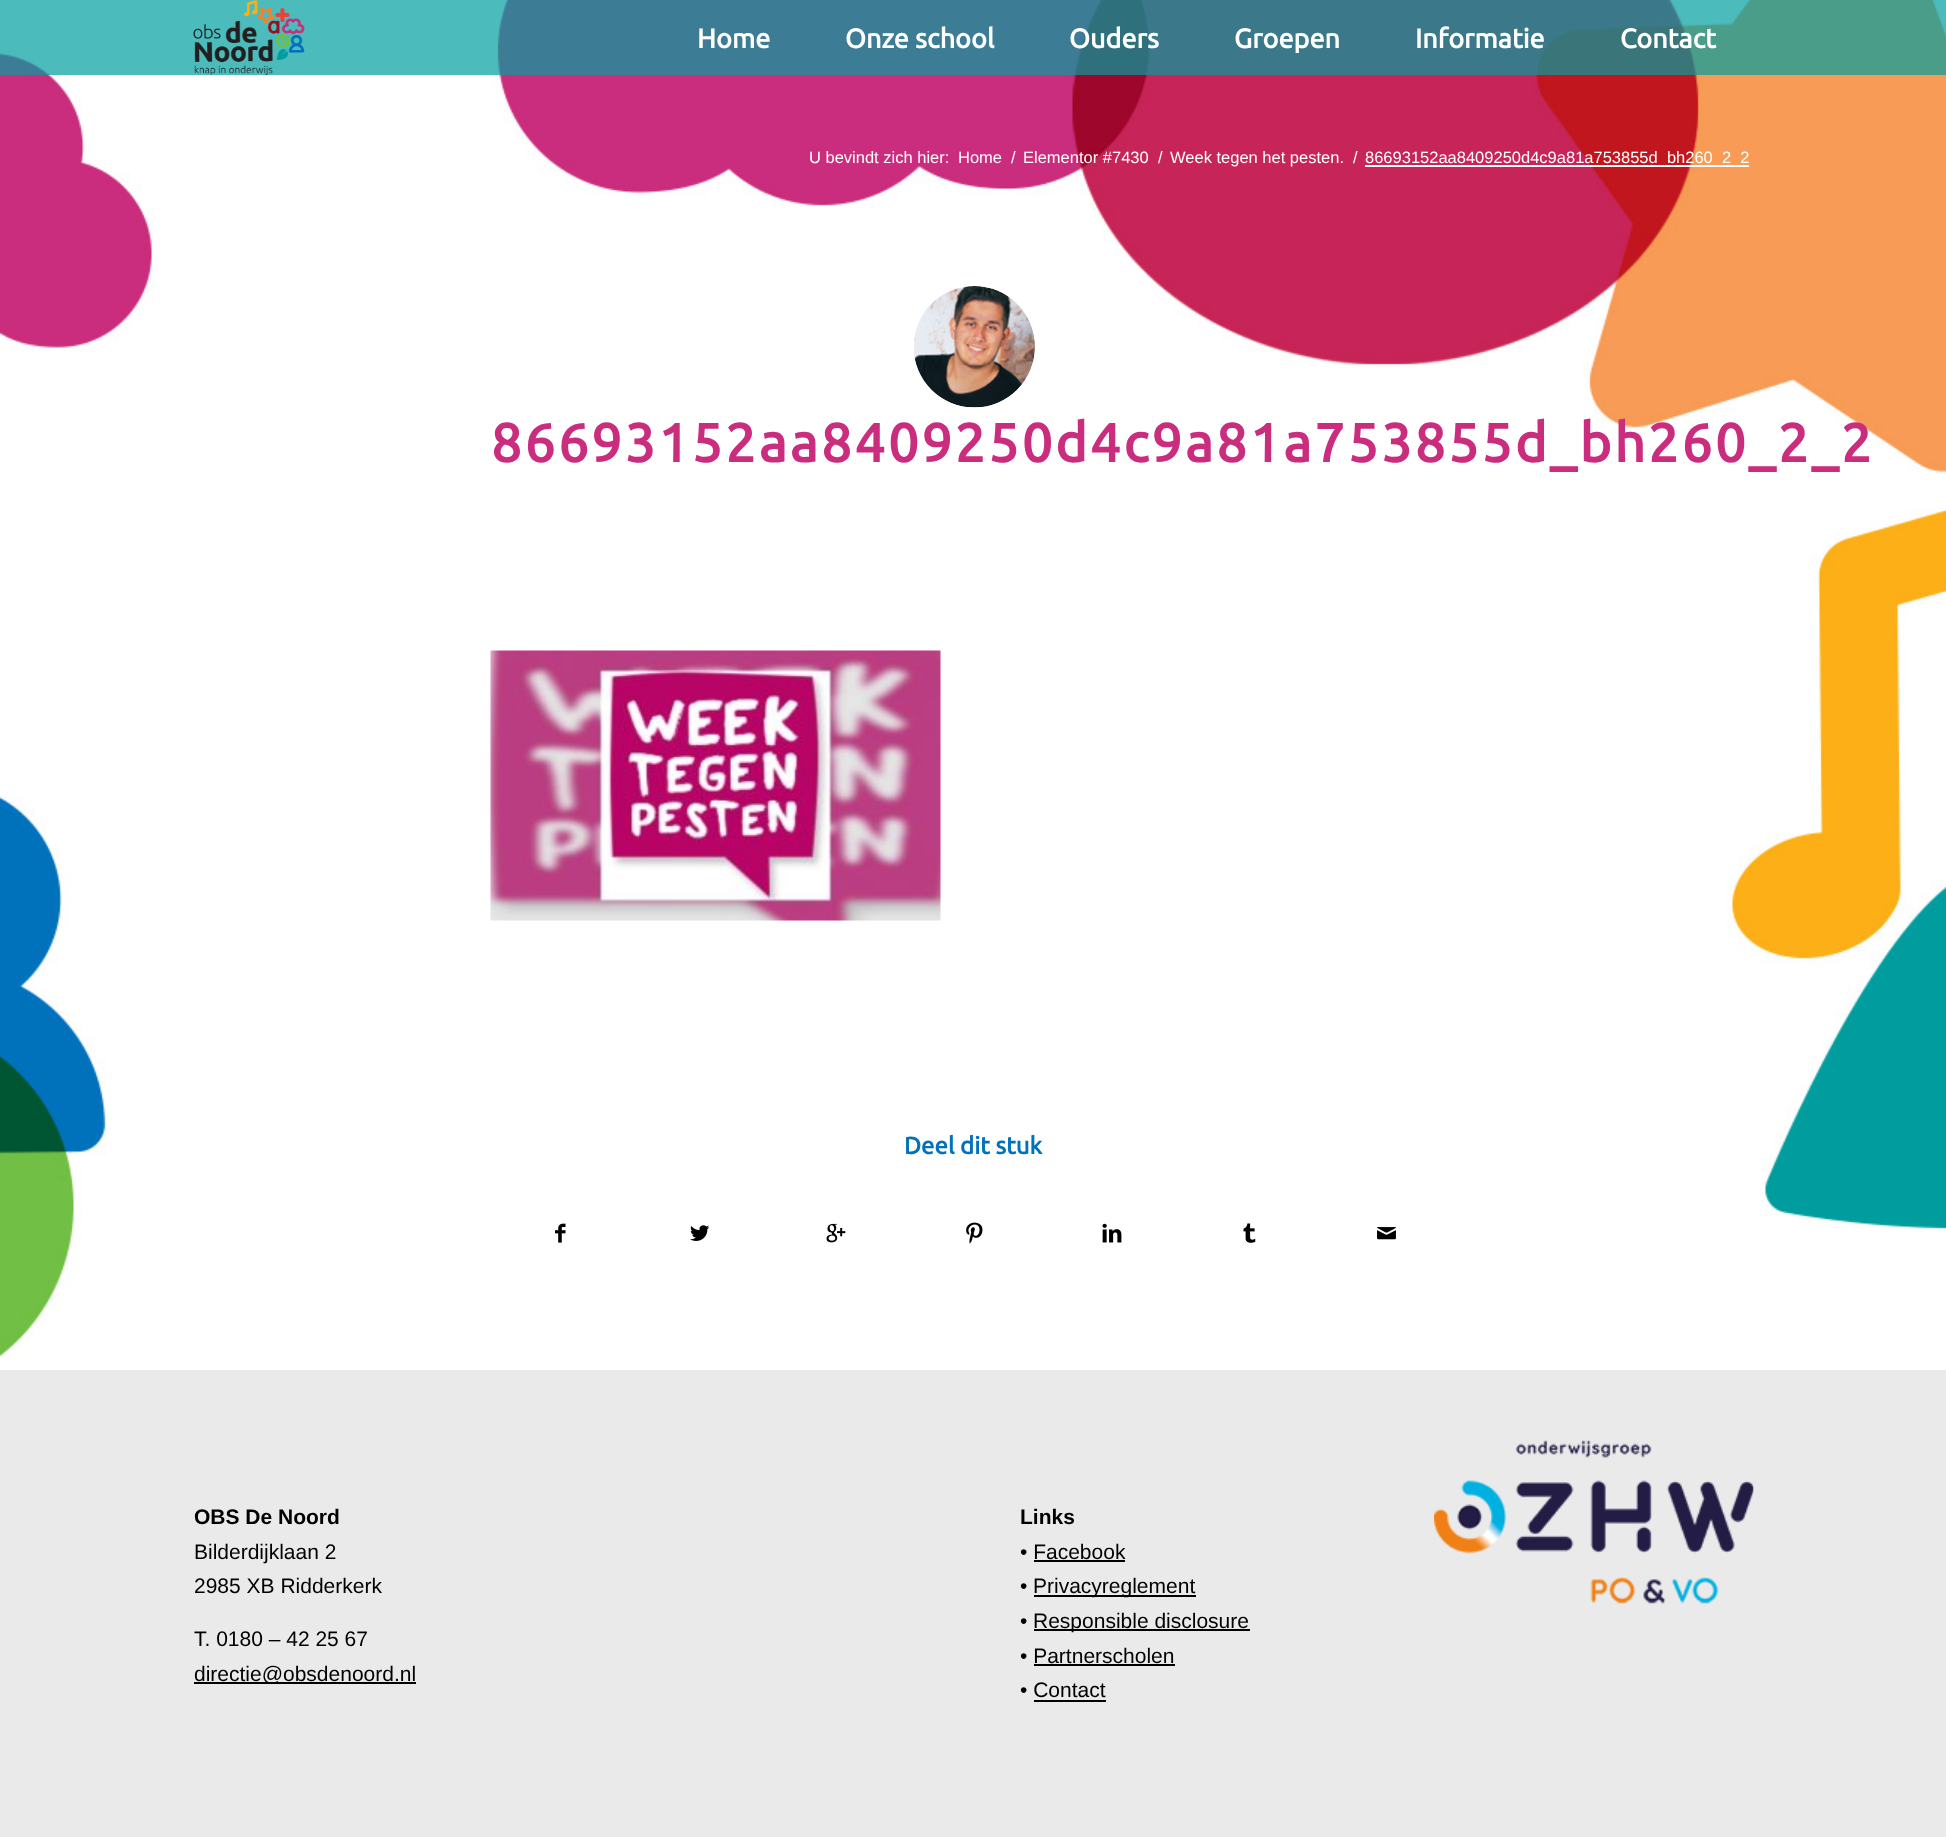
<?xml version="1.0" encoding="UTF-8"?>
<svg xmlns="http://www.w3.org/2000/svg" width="1946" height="1837">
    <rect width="100%" height="100%" fill="#FFFFFF"/>
    <image x="0" y="0" width="1946" height="1360" href="img_01.png"/>
    <rect x="0" y="0" width="1946" height="75" fill="#009E9F" fill-opacity="0.7"/>
    <image x="193" y="0" width="112" height="75" href="img_02.png"/>
    <text x="697" y="48" font-family="Ubuntu" font-size="27" font-weight="700" fill="#FFFFFF">Home</text>
    <text x="845" y="48" font-family="Ubuntu" font-size="27" font-weight="700" fill="#FFFFFF">Onze school</text>
    <text x="1069" y="48" font-family="Ubuntu" font-size="27" font-weight="700" fill="#FFFFFF">Ouders</text>
    <text x="1234" y="48" font-family="Ubuntu" font-size="27" font-weight="700" fill="#FFFFFF">Groepen</text>
    <text x="1415" y="48" font-family="Ubuntu" font-size="27" font-weight="700" fill="#FFFFFF">Informatie</text>
    <text x="1620" y="48" font-family="Ubuntu" font-size="27" font-weight="700" fill="#FFFFFF">Contact</text>
    <text x="809" y="163" font-family="Liberation Sans" font-size="16.5" fill="#FFFFFF">U bevindt zich hier:</text>
    <text x="958" y="163" font-family="Liberation Sans" font-size="16.5" fill="#FFFFFF">Home</text>
    <text x="1011" y="163" font-family="Liberation Sans" font-size="16.5" fill="#FFFFFF">/</text>
    <text x="1023" y="163" font-family="Liberation Sans" font-size="16.5" fill="#FFFFFF">Elementor #7430</text>
    <text x="1158" y="163" font-family="Liberation Sans" font-size="16.5" fill="#FFFFFF">/</text>
    <text x="1170" y="163" font-family="Liberation Sans" font-size="16.5" fill="#FFFFFF">Week tegen het pesten.</text>
    <text x="1353" y="163" font-family="Liberation Sans" font-size="16.5" fill="#FFFFFF">/</text>
    <rect x="1365" y="165" width="384" height="2" fill="#FFFFFF"/>
    <text x="1365" y="163" font-family="Liberation Sans" font-size="16.5" fill="#FFFFFF">86693152aa8409250d4c9a81a753855d_bh260_2_2</text>
    <image x="914" y="286" width="121" height="122" href="img_03.png"/>
    <text x="491" y="462" font-family="Ubuntu" font-size="54" font-weight="700" letter-spacing="3" fill="#CA2D7E">86693152aa8409250d4c9a81a753855d_bh260_2_2</text>
    <image x="490" y="650" width="451" height="271" href="img_04.png"/>
    <text x="904" y="1154" font-family="Ubuntu" font-size="24" font-weight="700" fill="#0071BC">Deel dit stuk</text>
    <image x="555" y="1223" width="11" height="20" href="img_05.png"/>
    <image x="690" y="1225" width="20" height="16" href="img_06.png"/>
    <image x="826" y="1223" width="20" height="20" href="img_07.png"/>
    <image x="966" y="1222" width="17" height="22" href="img_08.png"/>
    <image x="1102" y="1223" width="20" height="20" href="img_09.png"/>
    <image x="1243" y="1223" width="13" height="20" href="img_10.png"/>
    <image x="1377" y="1227" width="19" height="13" href="img_11.png"/>
    <rect x="0" y="1370" width="1946" height="467" fill="#EAEAEA"/>
    <text x="194" y="1524" font-family="Liberation Sans" font-size="21" font-weight="700" fill="#000000">OBS De Noord</text>
    <text font-family="Liberation Sans" font-size="21" fill="#000000">
        <tspan x="194" y="1559">Bilderdijklaan 2</tspan>
        <tspan x="194" y="1593">2985 XB Ridderkerk</tspan>
    </text>
    <text x="194" y="1646" font-family="Liberation Sans" font-size="21" fill="#000000">T. 0180 – 42 25 67</text>
    <rect x="194" y="1682" width="222" height="2" fill="#000000"/>
    <text x="194" y="1681" font-family="Liberation Sans" font-size="21" fill="#000000">directie@obsdenoord.nl</text>
    <text x="1020" y="1524" font-family="Liberation Sans" font-size="21" font-weight="700" fill="#000000">Links</text>
    <text x="1020" y="1559" font-family="Liberation Sans" font-size="21" fill="#000000">• Facebook</text>
    <rect x="1034" y="1560" width="91" height="2" fill="#000000"/>
    <text x="1020" y="1593" font-family="Liberation Sans" font-size="21" fill="#000000">•</text>
    <rect x="1034" y="1595" width="162" height="2" fill="#000000"/>
    <text x="1033" y="1593" font-family="Liberation Sans" font-size="21" fill="#000000">Privacyreglement</text>
    <text x="1020" y="1628" font-family="Liberation Sans" font-size="21" fill="#000000">•</text>
    <rect x="1034" y="1629" width="216" height="2" fill="#000000"/>
    <text x="1033" y="1628" font-family="Liberation Sans" font-size="21" fill="#000000">Responsible disclosure</text>
    <text x="1020" y="1663" font-family="Liberation Sans" font-size="21" fill="#000000">• Partnerscholen</text>
    <rect x="1034" y="1664" width="141" height="2" fill="#000000"/>
    <text x="1020" y="1697" font-family="Liberation Sans" font-size="21" fill="#000000">• Contact</text>
    <rect x="1034" y="1700" width="72" height="2" fill="#000000"/>
    <image x="1434" y="1440" width="320" height="164" href="img_12.png"/>
</svg>
